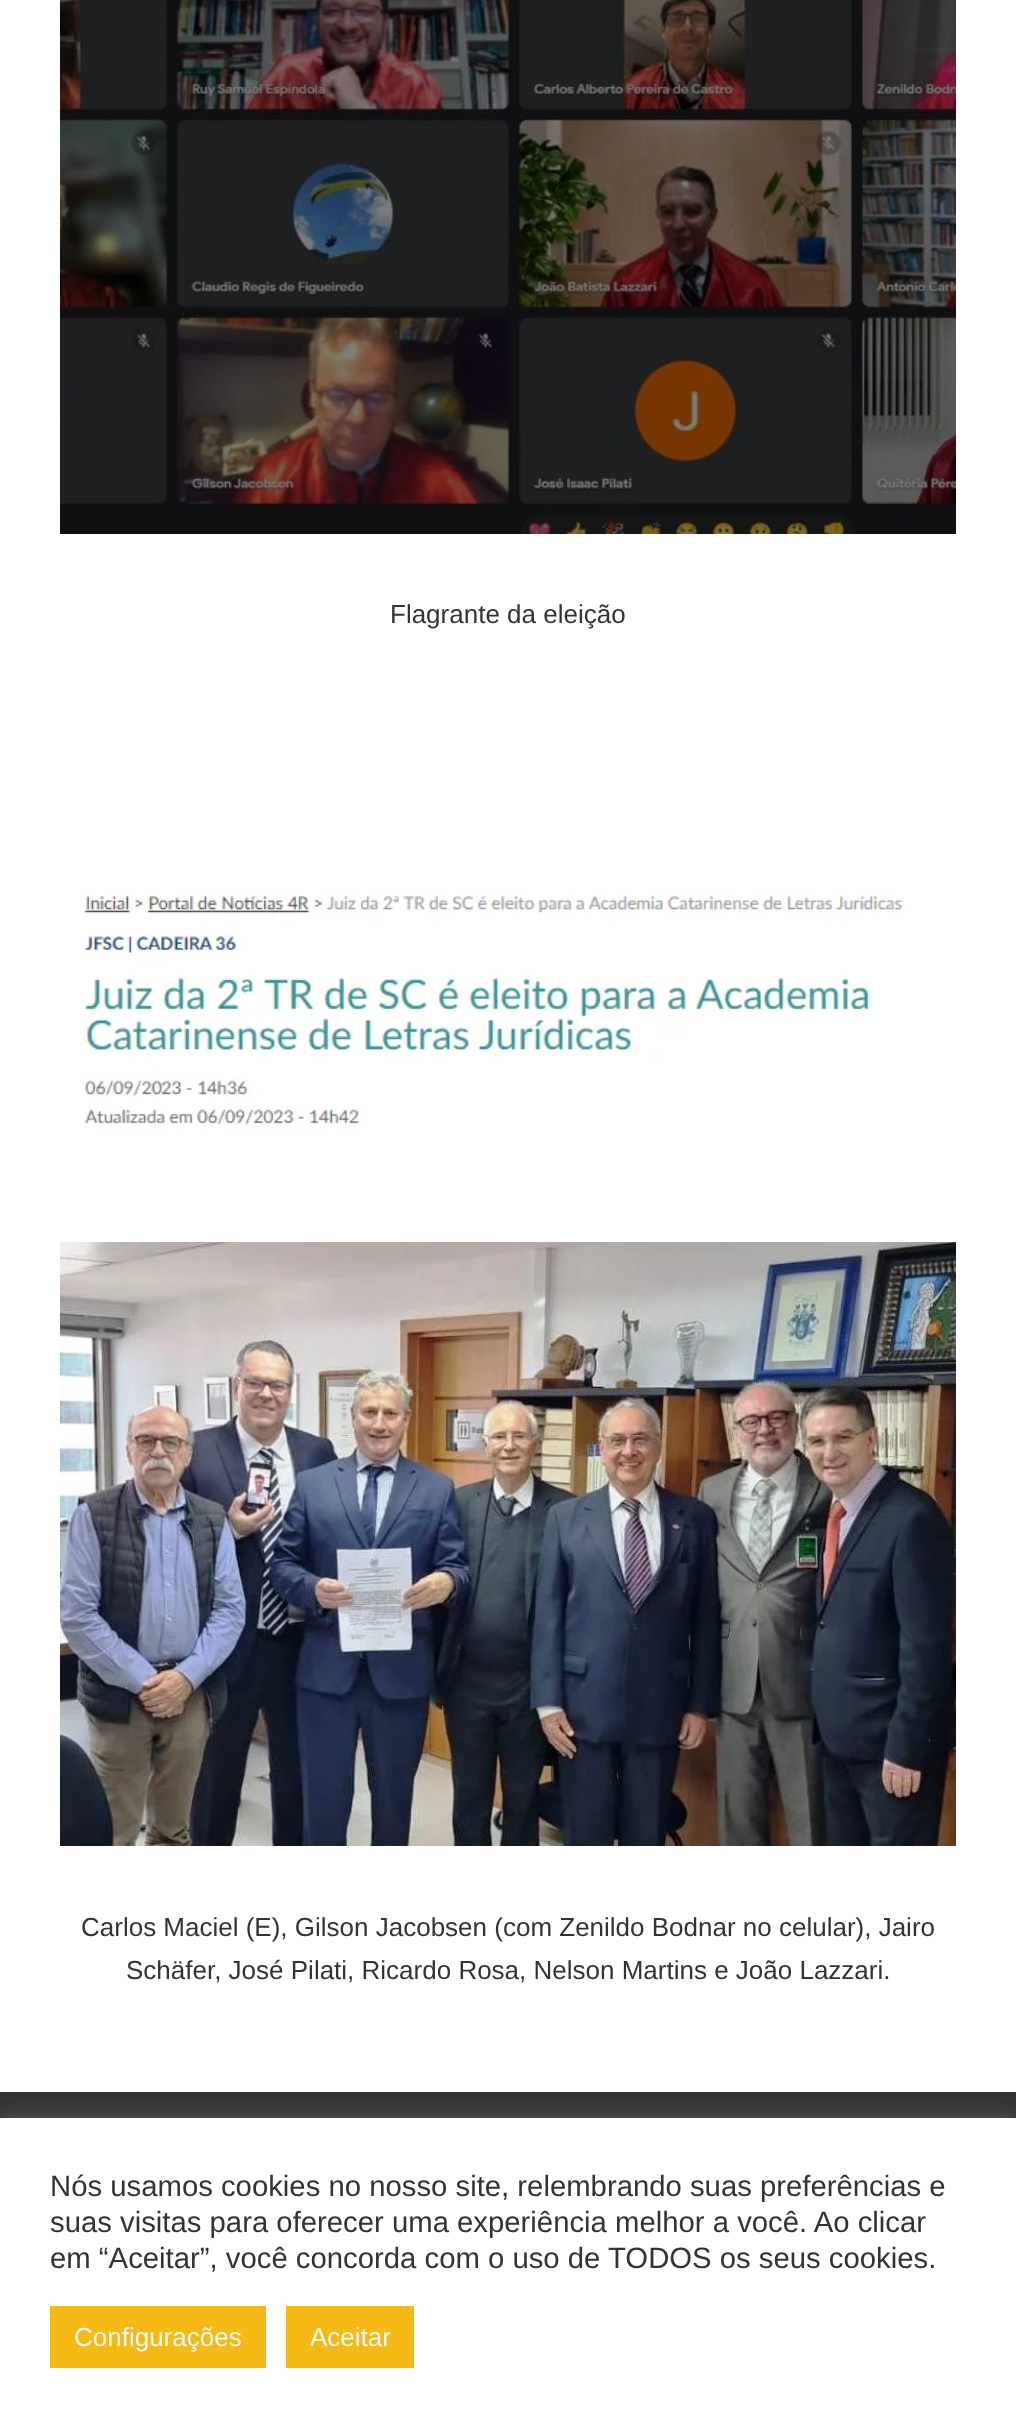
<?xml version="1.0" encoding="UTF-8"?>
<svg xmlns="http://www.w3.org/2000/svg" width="1016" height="2427">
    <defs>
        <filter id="blur1" x="-50%" y="-200%" width="200%" height="500%"><feGaussianBlur stdDeviation="10"/></filter>
    </defs>
    <rect width="100%" height="100%" fill="#FFFFFF"/>
    <image x="60" y="0" width="896" height="534" href="img_01.png"/>
    <text x="390" y="623" font-family="Liberation Sans" font-size="26" fill="#333333">Flagrante da eleição</text>
    <image x="83" y="888" width="822" height="242" href="img_02.png"/>
    <image x="60" y="1242" width="896" height="604" href="img_03.png"/>
    <text x="81" y="1936" font-family="Liberation Sans" font-size="26" fill="#333333">Carlos Maciel (E), Gilson Jacobsen (com Zenildo Bodnar no celular), Jairo</text>
    <text x="126" y="1979" font-family="Liberation Sans" font-size="26" fill="#333333">Schäfer, José Pilati, Ricardo Rosa, Nelson Martins e João Lazzari.</text>
    <rect x="0" y="2092" width="1016" height="26" fill="#333333"/>
    <rect x="0" y="2116" width="1016" height="310" fill="#ACABAB" fill-opacity="0.3" filter="url(#blur1)"/>
    <rect x="0" y="2118" width="1016" height="309" fill="#FFFFFF"/>
    <text font-family="Liberation Sans" font-size="29.3" fill="#333333">
        <tspan x="50" y="2196">Nós usamos cookies no nosso site, relembrando suas preferências e</tspan>
        <tspan x="50" y="2232">suas visitas para oferecer uma experiência melhor a você. Ao clicar</tspan>
        <tspan x="50" y="2268">em “Aceitar”, você concorda com o uso de TODOS os seus cookies.</tspan>
    </text>
    <rect x="50" y="2306" width="216" height="62" fill="#F5BA16"/>
    <text x="74" y="2346" font-family="Liberation Sans" font-size="26" fill="#FAFAFA">Configurações</text>
    <rect x="286" y="2306" width="128" height="62" fill="#F5BA16"/>
    <text x="310" y="2346" font-family="Liberation Sans" font-size="26" fill="#FAFAFA">Aceitar</text>
</svg>
